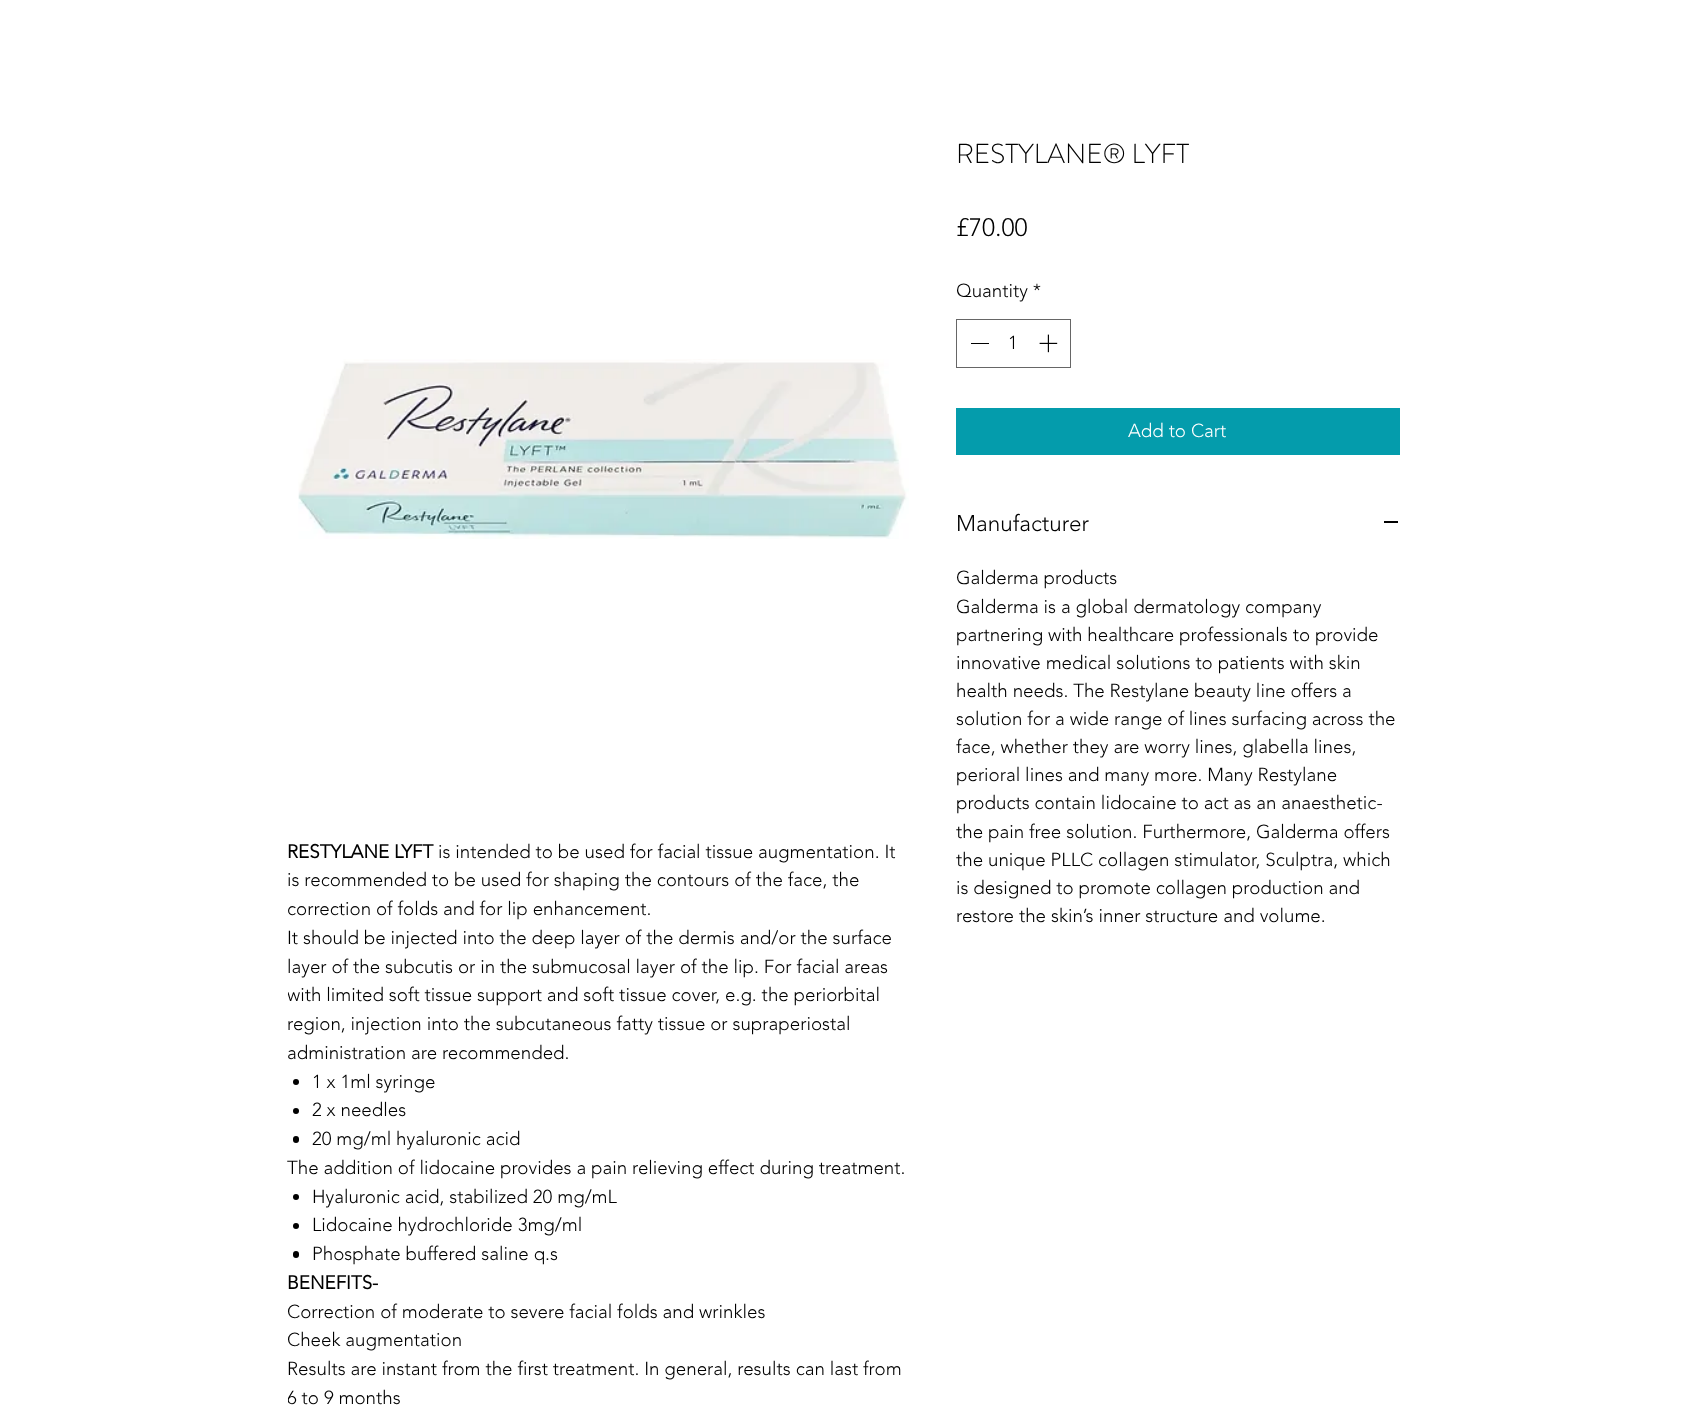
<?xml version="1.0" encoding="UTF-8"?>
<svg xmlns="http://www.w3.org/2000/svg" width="1686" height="1416">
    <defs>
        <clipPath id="clip1"><rect x="288" y="838" width="625" height="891"/></clipPath>
    </defs>
    <rect width="100%" height="100%" fill="#FFFFFF"/>
    <text x="956" y="163" font-family="'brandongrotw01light'" font-size="27.5" font-weight="300" fill="#000000">RESTYLANE® LYFT</text>
    <text x="956" y="236" font-family="'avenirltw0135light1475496'" font-size="25" font-weight="300" fill="#000000">£70.00</text>
    <text x="956" y="297" font-family="'avenirltw0135light1475496'" font-size="18.75" font-weight="300" fill="#000000">Quantity *</text>
    <rect x="956.5" y="319.5" width="114" height="48" fill="none" stroke="#666666"/>
    <rect x="971" y="343" width="18" height="1" fill="#000000"/>
    <text x="1008" y="349" font-family="'avenirltw0135light1475496'" font-size="18.75" font-weight="300" fill="#000000">1</text>
    <image x="1039" y="334" width="19" height="19" href="img_01.png"/>
    <rect x="956" y="408" width="444" height="47" fill="#049CAC"/>
    <text x="1128" y="437" font-family="'avenirltw0135light1475496'" font-size="18.75" font-weight="300" fill="#FFFFFF">Add to Cart</text>
    <text x="956" y="531" font-family="'avenirltw0135light1475496'" font-size="22.5" font-weight="300" fill="#000000">Manufacturer</text>
    <rect x="1384" y="521" width="14" height="2" fill="#000000"/>
    <text font-family="'avenirltw0135light1475496'" font-size="18.75" font-weight="300" fill="#000000">
        <tspan x="956" y="584">Galderma products</tspan>
        <tspan x="956" y="613">Galderma is a global dermatology company</tspan>
        <tspan x="956" y="641">partnering with healthcare professionals to provide</tspan>
        <tspan x="956" y="669">innovative medical solutions to patients with skin</tspan>
        <tspan x="956" y="697">health needs. The Restylane beauty line offers a</tspan>
        <tspan x="956" y="725">solution for a wide range of lines surfacing across the</tspan>
        <tspan x="956" y="753">face, whether they are worry lines, glabella lines,</tspan>
        <tspan x="956" y="781">perioral lines and many more. Many Restylane</tspan>
        <tspan x="956" y="809">products contain lidocaine to act as an anaesthetic-</tspan>
        <tspan x="956" y="838">the pain free solution. Furthermore, Galderma offers</tspan>
        <tspan x="956" y="866">the unique PLLC collagen stimulator, Sculptra, which</tspan>
        <tspan x="956" y="894">is designed to promote collagen production and</tspan>
        <tspan x="956" y="922">restore the skin’s inner structure and volume.</tspan>
    </text>
    <image x="298" y="359" width="611" height="180" href="img_02.png"/>
    <text x="287" y="858" font-family="'avenirltw0135light1475496'" font-size="18.75" font-weight="700" fill="#000000">RESTYLANE LYFT</text>
    <text x="438" y="858" font-family="'avenirltw0135light1475496'" font-size="18.75" font-weight="300" fill="#000000">is intended to be used for facial tissue augmentation. It</text>
    <text font-family="'avenirltw0135light1475496'" font-size="18.75" font-weight="300" fill="#000000">
        <tspan x="287" y="886">is recommended to be used for shaping the contours of the face, the</tspan>
        <tspan x="287" y="915">correction of folds and for lip enhancement.</tspan>
        <tspan x="287" y="944">It should be injected into the deep layer of the dermis and/or the surface</tspan>
        <tspan x="287" y="973">layer of the subcutis or in the submucosal layer of the lip. For facial areas</tspan>
    </text>
    <g clip-path="url(#clip1)">
        <text x="287" y="1001" font-family="'avenirltw0135light1475496'" font-size="18.75" font-weight="300" fill="#000000">with limited soft tissue support and soft tissue cover, e.g. the periorbital</text>
    </g>
    <text font-family="'avenirltw0135light1475496'" font-size="18.75" font-weight="300" fill="#000000">
        <tspan x="287" y="1030">region, injection into the subcutaneous fatty tissue or supraperiostal</tspan>
        <tspan x="287" y="1059">administration are recommended.</tspan>
    </text>
    <circle cx="296" cy="1082" r="3" fill="#000000"/>
    <text x="312" y="1088" font-family="'avenirltw0135light1475496'" font-size="18.75" font-weight="300" fill="#000000">1 x 1ml syringe</text>
    <circle cx="296" cy="1111" r="3" fill="#000000"/>
    <text x="312" y="1116" font-family="'avenirltw0135light1475496'" font-size="18.75" font-weight="300" fill="#000000">2 x needles</text>
    <rect x="293" y="1136" width="6" height="7" rx="3" fill="#000000"/>
    <text x="312" y="1145" font-family="'avenirltw0135light1475496'" font-size="18.75" font-weight="300" fill="#000000">20 mg/ml hyaluronic acid</text>
    <text x="287" y="1174" font-family="'avenirltw0135light1475496'" font-size="18.75" font-weight="300" fill="#000000">The addition of lidocaine provides a pain relieving effect during treatment.</text>
    <circle cx="296" cy="1197" r="3" fill="#000000"/>
    <text x="312" y="1203" font-family="'avenirltw0135light1475496'" font-size="18.75" font-weight="300" fill="#000000">Hyaluronic acid, stabilized 20 mg/mL</text>
    <circle cx="296" cy="1226" r="3" fill="#000000"/>
    <text x="312" y="1231" font-family="'avenirltw0135light1475496'" font-size="18.75" font-weight="300" fill="#000000">Lidocaine hydrochloride 3mg/ml</text>
    <rect x="293" y="1251" width="6" height="7" rx="3" fill="#000000"/>
    <text x="312" y="1260" font-family="'avenirltw0135light1475496'" font-size="18.75" font-weight="300" fill="#000000">Phosphate buffered saline q.s</text>
    <text x="287" y="1289" font-family="'avenirltw0135light1475496'" font-size="18.75" font-weight="700" fill="#000000">BENEFITS-</text>
    <text font-family="'avenirltw0135light1475496'" font-size="18.75" font-weight="300" fill="#000000">
        <tspan x="287" y="1318">Correction of moderate to severe facial folds and wrinkles</tspan>
        <tspan x="287" y="1346">Cheek augmentation</tspan>
        <tspan x="287" y="1375">Results are instant from the first treatment. In general, results can last from</tspan>
    </text>
    <g clip-path="url(#clip1)">
        <text x="287" y="1404" font-family="'avenirltw0135light1475496'" font-size="18.75" font-weight="300" fill="#000000">6 to 9 months</text>
    </g>
</svg>
